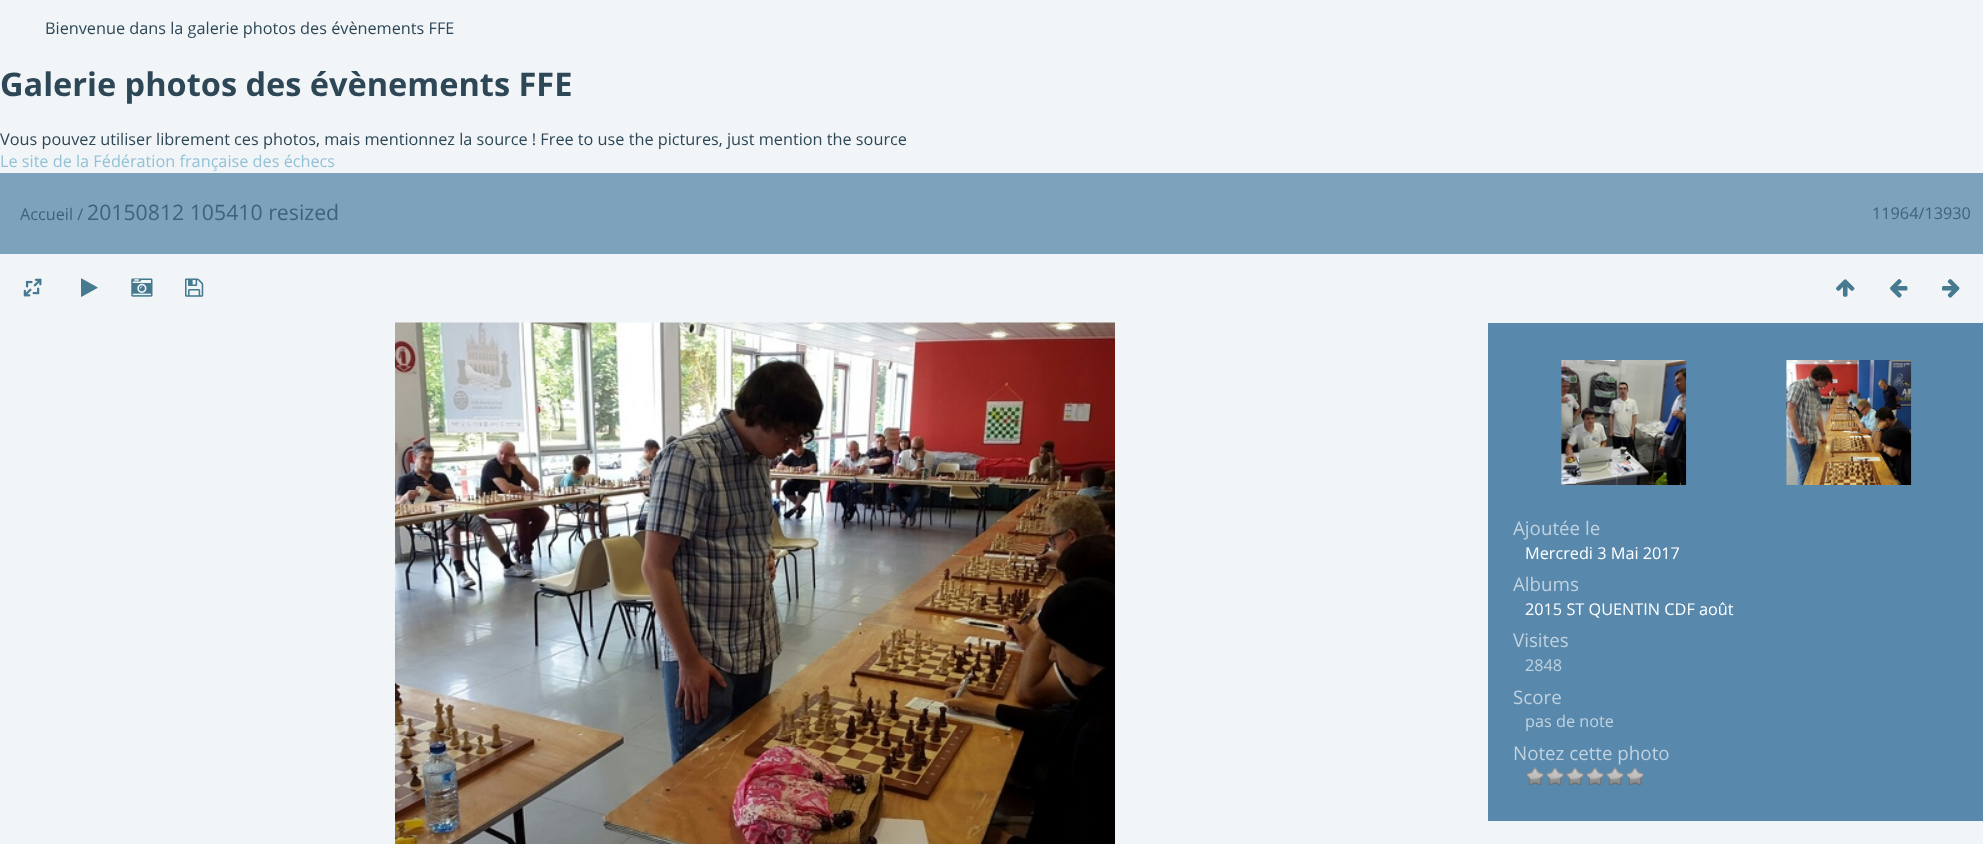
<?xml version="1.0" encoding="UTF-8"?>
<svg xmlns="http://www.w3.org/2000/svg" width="1983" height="844">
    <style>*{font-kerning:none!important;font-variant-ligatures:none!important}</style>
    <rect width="100%" height="100%" fill="#F1F5F8"/>
    <text x="45" y="34" font-family="Open Sans" font-size="16.25" fill="#2E4756">Bienvenue dans la galerie photos des évènements FFE</text>
    <text x="0" y="96" font-family="Open Sans" font-size="32.5" font-weight="700" fill="#2E4756">Galerie photos des évènements FFE</text>
    <text x="0" y="145" font-family="Open Sans" font-size="16.25" fill="#2E4756">Vous pouvez utiliser librement ces photos, mais mentionnez la source ! Free to use the pictures, just mention the source</text>
    <text x="0" y="167" font-family="Open Sans" font-size="16.25" fill="#93C2D6">Le site de la Fédération française des échecs</text>
    <rect x="0" y="173" width="1983" height="81" fill="#7CA2BC"/>
    <text x="20" y="220" font-family="Open Sans" font-size="16.25" fill="#3F6379">Accueil /</text>
    <text x="87" y="220" font-family="Open Sans" font-size="21.25" fill="#3F6379">20150812 105410 resized</text>
    <text x="1872" y="219" font-family="Open Sans" font-size="16.25" fill="#3F6379">11964/13930</text>
    <image x="23" y="278" width="19" height="19" href="img_01.png"/>
    <text x="81" y="295" font-family="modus" font-size="21.25" fill="#457A90">▶</text>
    <image x="131" y="278" width="22" height="19" href="img_02.png"/>
    <text x="185" y="295" font-family="modus" font-size="21.25" fill="#457A90">💾</text>
    <text x="1836" y="295" font-family="modus" font-size="21.25" fill="#457A90">↑</text>
    <text x="1890" y="295" font-family="modus" font-size="21.25" fill="#457A90">←</text>
    <text x="1942" y="295" font-family="modus" font-size="21.25" fill="#457A90">→</text>
    <image x="395" y="322" width="720" height="522" href="img_03.png"/>
    <rect x="1488" y="323" width="495" height="498" fill="#5889AD"/>
    <image x="1561" y="360" width="126" height="125" href="img_04.png"/>
    <image x="1786" y="360" width="126" height="125" href="img_05.png"/>
    <text x="1513" y="535" font-family="Open Sans" font-size="18.75" fill="#C0D2DF">Ajoutée le</text>
    <text x="1525" y="559" font-family="Open Sans" font-size="16.25" fill="#FFFFFF">Mercredi 3 Mai 2017</text>
    <text x="1513" y="591" font-family="Open Sans" font-size="18.75" fill="#C0D2DF">Albums</text>
    <text x="1525" y="615" font-family="Open Sans" font-size="16.25" fill="#FFFFFF">2015 ST QUENTIN CDF août</text>
    <text x="1513" y="647" font-family="Open Sans" font-size="18.75" fill="#C0D2DF">Visites</text>
    <text x="1525" y="671" font-family="Open Sans" font-size="16.25" fill="#C0D2DF">2848</text>
    <text x="1513" y="704" font-family="Open Sans" font-size="18.75" fill="#C0D2DF">Score</text>
    <text x="1525" y="727" font-family="Open Sans" font-size="16.25" fill="#C0D2DF">pas de note</text>
    <text x="1513" y="760" font-family="Open Sans" font-size="18.75" fill="#C0D2DF">Notez cette photo</text>
    <image x="1525" y="767" width="20" height="19" href="img_06.png"/>
    <image x="1545" y="767" width="20" height="19" href="img_07.png"/>
    <image x="1565" y="767" width="20" height="19" href="img_06.png"/>
    <image x="1585" y="767" width="20" height="19" href="img_06.png"/>
    <image x="1605" y="767" width="20" height="19" href="img_06.png"/>
    <image x="1625" y="767" width="20" height="19" href="img_06.png"/>
</svg>
